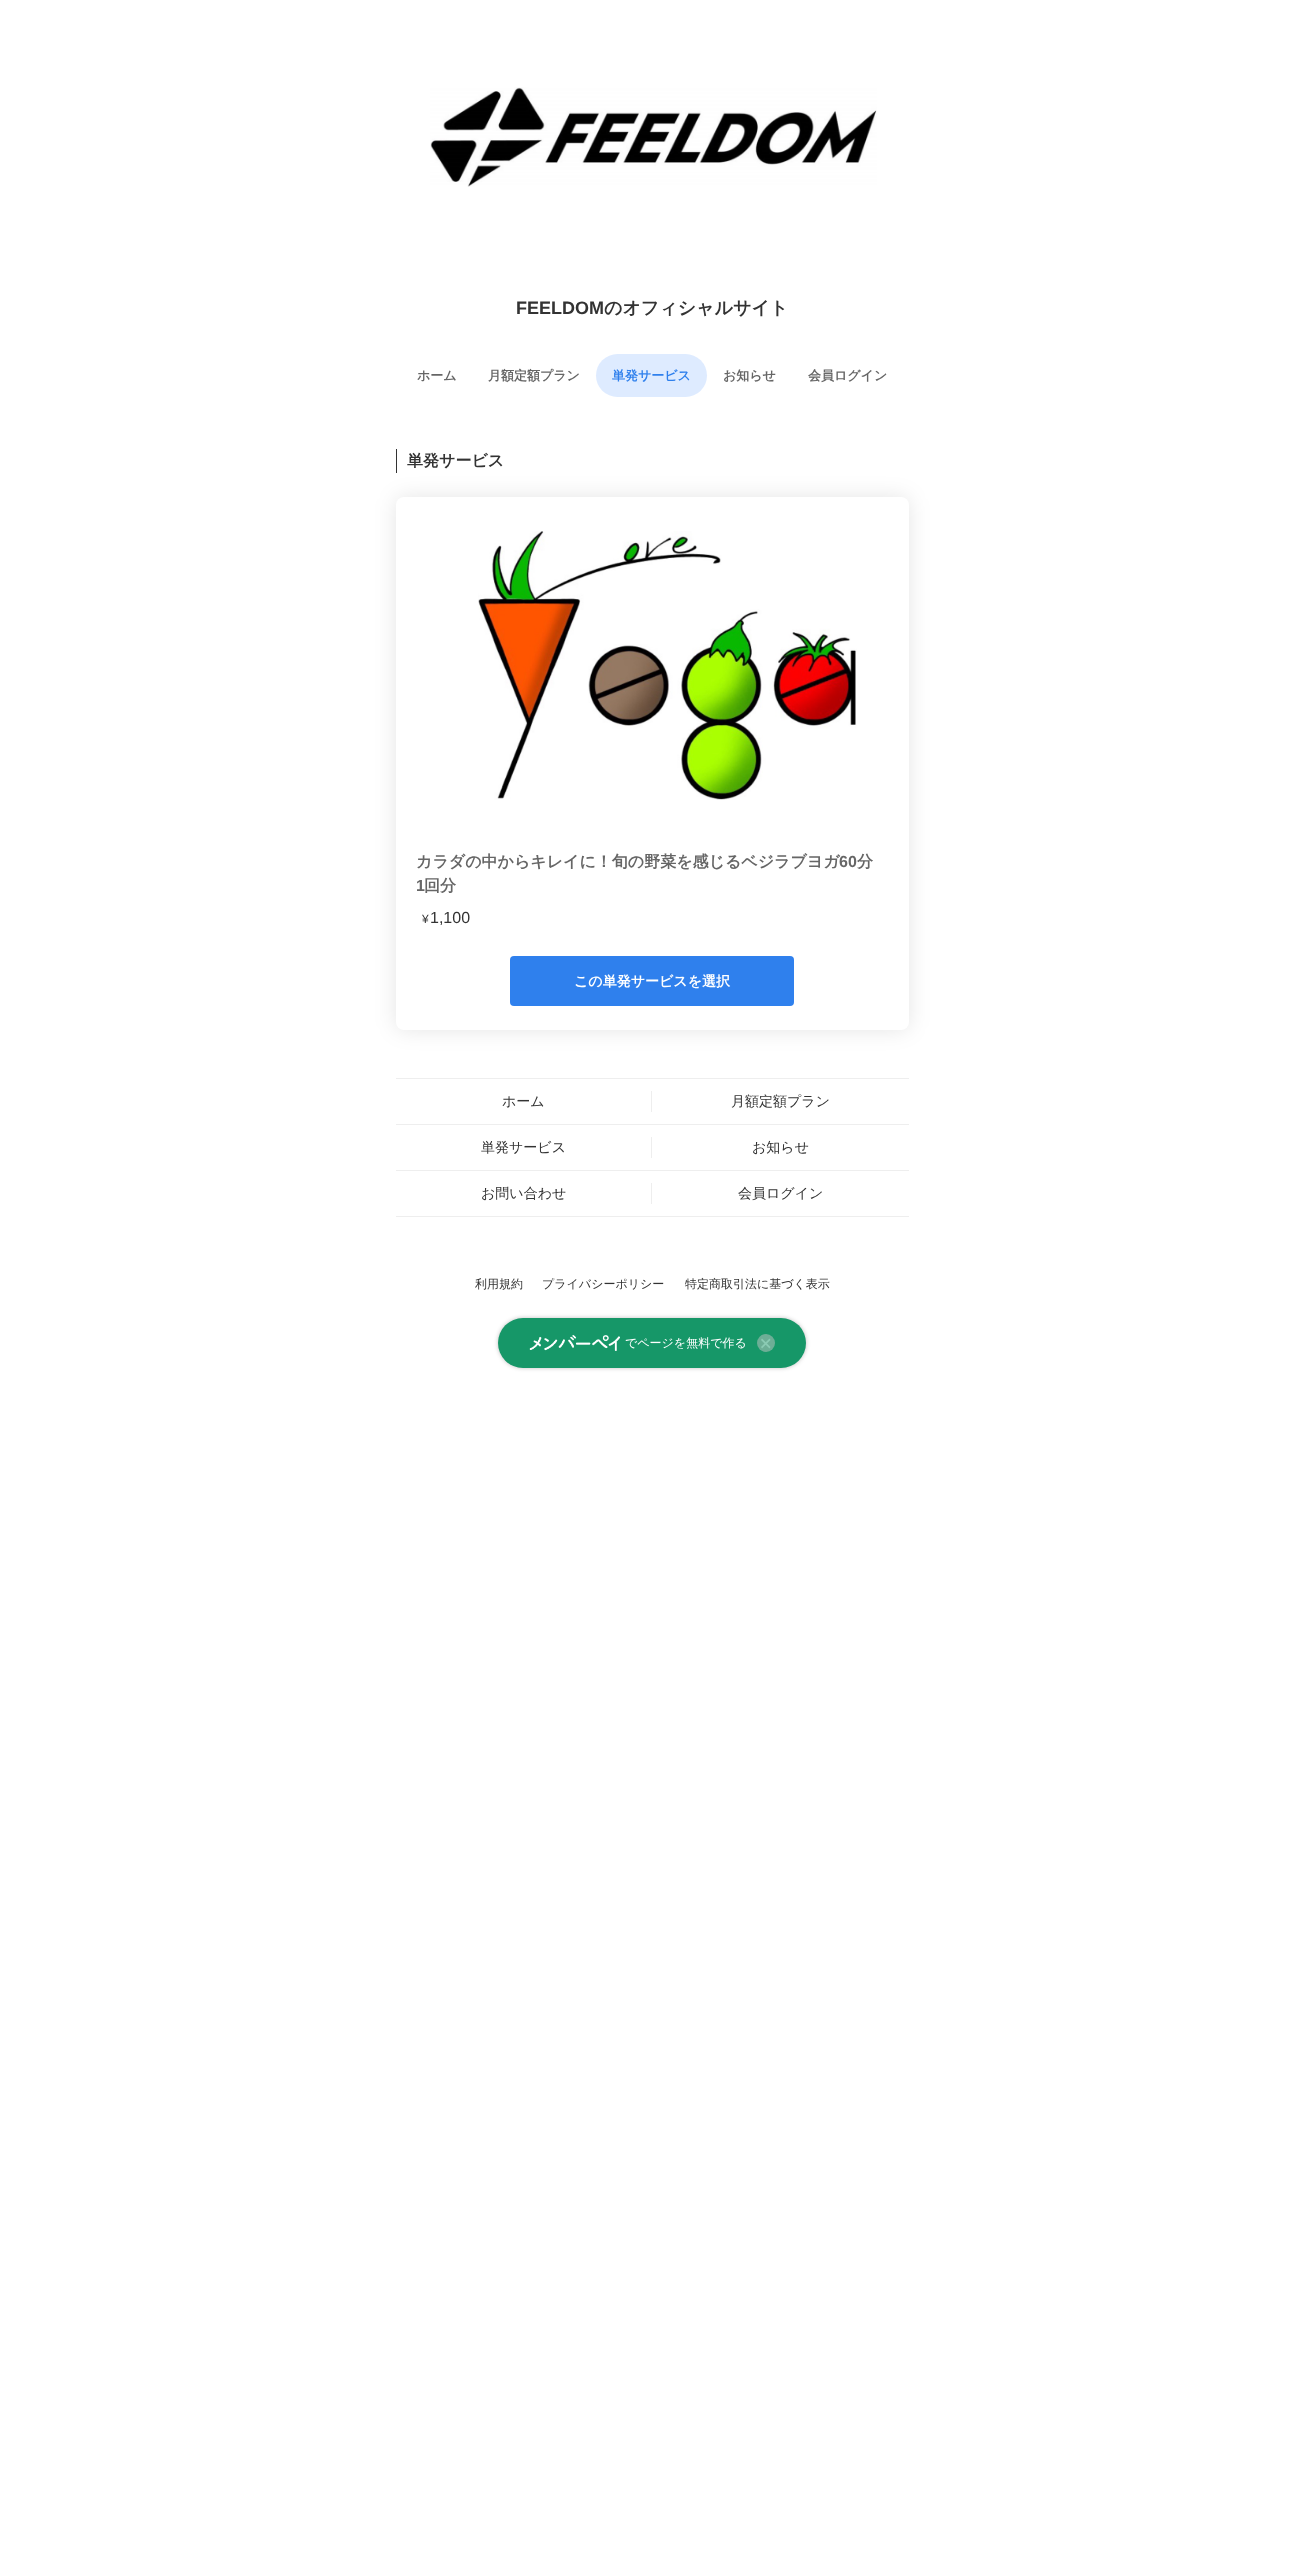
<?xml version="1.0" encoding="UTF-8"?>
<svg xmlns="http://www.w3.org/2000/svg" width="1304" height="2573">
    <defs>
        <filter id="blur1" x="-50%" y="-200%" width="200%" height="500%"><feGaussianBlur stdDeviation="10.5"/></filter>
        <filter id="blur2" x="-50%" y="-200%" width="200%" height="500%"><feGaussianBlur stdDeviation="2"/></filter>
    </defs>
    <rect width="100%" height="100%" fill="#FFFFFF"/>
    <image x="430" y="87" width="447" height="100" href="img_01.png"/>
    <text x="516" y="314" font-family="Liberation Sans" font-size="18" font-weight="700" fill="#333333">FEELDOM</text>
    <text x="604" y="314" font-family="WenQuanYi Zen Hei" font-size="18" font-weight="700" fill="#333333">のオフィシャルサイト</text>
    <text x="417" y="380" font-family="WenQuanYi Zen Hei" font-size="13" font-weight="700" fill="#666666">ホーム</text>
    <text x="488" y="380" font-family="WenQuanYi Zen Hei" font-size="13" font-weight="700" fill="#666666">月額定額プラン</text>
    <rect x="596" y="354" width="111" height="43" rx="21.5" fill="#DEEBFF"/>
    <text x="612" y="380" font-family="WenQuanYi Zen Hei" font-size="13" font-weight="700" fill="#2F80ED">単発サービス</text>
    <text x="723" y="380" font-family="WenQuanYi Zen Hei" font-size="13" font-weight="700" fill="#666666">お知らせ</text>
    <text x="808" y="380" font-family="WenQuanYi Zen Hei" font-size="13" font-weight="700" fill="#666666">会員ログイン</text>
    <rect x="396" y="449" width="1" height="24" fill="#333333"/>
    <rect x="396" y="497" width="513" height="533" rx="8" fill="#000000" fill-opacity="0.1" filter="url(#blur1)"/>
    <text x="407" y="466" font-family="WenQuanYi Zen Hei" font-size="16" font-weight="700" fill="#333333">単発サービス</text>
    <rect x="396" y="497" width="513" height="533" rx="8" fill="#FFFFFF"/>
    <image x="478" y="531" width="379" height="269" href="img_02.png"/>
    <text x="416" y="867" font-family="WenQuanYi Zen Hei" font-size="16" font-weight="700" fill="#666666">カラダの中からキレイに！旬の野菜を感じるベジラブヨガ</text>
    <text x="839" y="867" font-family="Liberation Sans" font-size="16" font-weight="700" fill="#666666">60</text>
    <text x="857" y="867" font-family="WenQuanYi Zen Hei" font-size="16" font-weight="700" fill="#666666">分</text>
    <text x="416" y="891" font-family="Liberation Sans" font-size="16" font-weight="700" fill="#666666">1</text>
    <text x="424" y="891" font-family="WenQuanYi Zen Hei" font-size="16" font-weight="700" fill="#666666">回分</text>
    <text x="422" y="923" font-family="Liberation Sans" font-size="12" fill="#333333">¥</text>
    <text x="430" y="923" font-family="Liberation Sans" font-size="16" fill="#333333">1,100</text>
    <rect x="510" y="956" width="284" height="50" rx="4" fill="#2F80ED"/>
    <text x="574" y="986" font-family="WenQuanYi Zen Hei" font-size="14" font-weight="700" fill="#FFFFFF">この単発サービスを選択</text>
    <rect x="396" y="1078" width="513" height="1" fill="#EEEEEE"/>
    <rect x="396" y="1124" width="513" height="1" fill="#EEEEEE"/>
    <rect x="651" y="1091" width="1" height="21" fill="#EEEEEE"/>
    <text x="502" y="1106" font-family="WenQuanYi Zen Hei" font-size="14" font-weight="500" fill="#333333">ホーム</text>
    <text x="731" y="1106" font-family="WenQuanYi Zen Hei" font-size="14" font-weight="500" fill="#333333">月額定額プラン</text>
    <rect x="396" y="1170" width="513" height="1" fill="#EEEEEE"/>
    <rect x="651" y="1137" width="1" height="21" fill="#EEEEEE"/>
    <text x="481" y="1152" font-family="WenQuanYi Zen Hei" font-size="14" font-weight="500" fill="#333333">単発サービス</text>
    <text x="752" y="1152" font-family="WenQuanYi Zen Hei" font-size="14" font-weight="500" fill="#333333">お知らせ</text>
    <rect x="396" y="1216" width="513" height="1" fill="#EEEEEE"/>
    <rect x="651" y="1183" width="1" height="21" fill="#EEEEEE"/>
    <text x="481" y="1198" font-family="WenQuanYi Zen Hei" font-size="14" font-weight="500" fill="#333333">お問い合わせ</text>
    <text x="738" y="1198" font-family="WenQuanYi Zen Hei" font-size="14" font-weight="500" fill="#333333">会員ログイン</text>
    <text x="475" y="1288" font-family="WenQuanYi Zen Hei" font-size="12" font-weight="500" fill="#333333">利用規約</text>
    <text x="542" y="1288" font-family="WenQuanYi Zen Hei" font-size="12" font-weight="500" fill="#333333">プライバシーポリシー</text>
    <text x="685" y="1288" font-family="WenQuanYi Zen Hei" font-size="12" font-weight="500" fill="#333333">特定商取引法に基づく表示</text>
    <rect x="498" y="1318" width="308" height="50" rx="25" fill="#000000" fill-opacity="0.25" filter="url(#blur2)"/>
    <rect x="498" y="1318" width="308" height="50" rx="25" fill="#169768"/>
    <image x="529" y="1335" width="91" height="16" href="img_03.png"/>
    <text x="625" y="1347" font-family="WenQuanYi Zen Hei" font-size="12" font-weight="500" fill="#FFFFFF">でページを無料で作る</text>
    <circle cx="766" cy="1343" r="9" fill="#6DAE96"/>
    <path d="M 769.5 1338.5 L 770.5 1340 L 762 1348.5 L 761 1347 Z" fill="#8BCBB4"/>
    <path d="M 761 1340 L 762 1338.5 L 770.5 1347 L 769.5 1348.5 Z" fill="#8BCBB4"/>
</svg>
